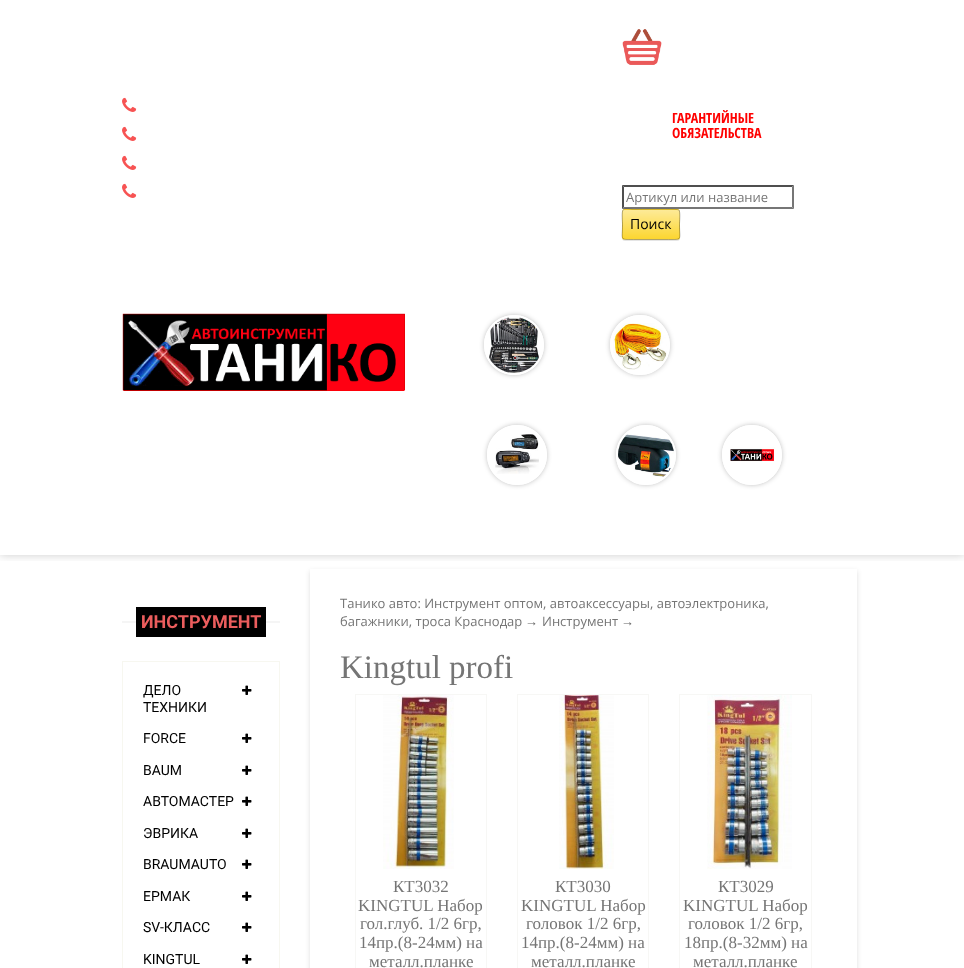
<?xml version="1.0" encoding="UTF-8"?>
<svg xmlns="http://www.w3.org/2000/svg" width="964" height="968">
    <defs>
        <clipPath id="clip1"><rect x="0" y="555" width="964" height="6"/></clipPath>
        <filter id="blur1" x="-50%" y="-200%" width="200%" height="500%"><feGaussianBlur stdDeviation="5"/></filter>
        <filter id="blur2" x="-50%" y="-200%" width="200%" height="500%"><feGaussianBlur stdDeviation="0.5"/></filter>
        <linearGradient id="g1" gradientUnits="userSpaceOnUse" x1="651" y1="210" x2="651" y2="239"><stop offset="0" stop-color="#FFFFFF" stop-opacity="0.5"/><stop offset="1" stop-color="#FFFFFF" stop-opacity="0"/></linearGradient>
        <clipPath id="clip2"><rect x="622" y="209" width="58" height="31" rx="3"/></clipPath>
        <linearGradient id="g2" gradientUnits="userSpaceOnUse" x1="651" y1="239" x2="651" y2="268"><stop offset="0" stop-color="#FFFFFF" stop-opacity="0.5"/><stop offset="1" stop-color="#FFFFFF" stop-opacity="0"/></linearGradient>
        <clipPath id="clip3"><path d="M 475 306 H 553 V 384 H 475 Z M 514 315 C 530.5 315 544 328.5 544 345 C 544 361.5 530.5 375 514 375 C 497.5 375 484 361.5 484 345 C 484 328.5 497.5 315 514 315 Z" clip-rule="evenodd"/></clipPath>
        <filter id="blur3" x="-50%" y="-200%" width="200%" height="500%"><feGaussianBlur stdDeviation="2.5"/></filter>
        <clipPath id="clip4"><path d="M 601 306 H 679 V 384 H 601 Z M 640 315 C 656.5 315 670 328.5 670 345 C 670 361.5 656.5 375 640 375 C 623.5 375 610 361.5 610 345 C 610 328.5 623.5 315 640 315 Z" clip-rule="evenodd"/></clipPath>
        <clipPath id="clip5"><path d="M 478 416 H 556 V 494 H 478 Z M 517 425 C 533.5 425 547 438.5 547 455 C 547 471.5 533.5 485 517 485 C 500.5 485 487 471.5 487 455 C 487 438.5 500.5 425 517 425 Z" clip-rule="evenodd"/></clipPath>
        <clipPath id="clip6"><path d="M 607 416 H 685 V 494 H 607 Z M 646 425 C 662.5 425 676 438.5 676 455 C 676 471.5 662.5 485 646 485 C 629.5 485 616 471.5 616 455 C 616 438.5 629.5 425 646 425 Z" clip-rule="evenodd"/></clipPath>
        <clipPath id="clip7"><path d="M 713 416 H 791 V 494 H 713 Z M 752 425 C 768.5 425 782 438.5 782 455 C 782 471.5 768.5 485 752 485 C 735.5 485 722 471.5 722 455 C 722 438.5 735.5 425 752 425 Z" clip-rule="evenodd"/></clipPath>
    </defs>
    <rect width="100%" height="100%" fill="#FFFFFF"/>
    <g clip-path="url(#clip1)">
        <rect x="0" y="-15" width="964" height="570" fill="#000000" fill-opacity="0.2" filter="url(#blur1)"/>
    </g>
    <image x="122" y="97" width="15" height="15" href="img_01.png"/>
    <image x="122" y="126" width="15" height="15" href="img_01.png"/>
    <image x="122" y="155" width="15" height="15" href="img_01.png"/>
    <image x="122" y="183" width="15" height="15" href="img_01.png"/>
    <image x="622" y="29" width="40" height="36" href="img_02.png"/>
    <text font-family="Open Sans Condensed" font-size="14" font-weight="700" fill="#FF0000">
        <tspan x="672" y="123">ГАРАНТИЙНЫЕ</tspan>
        <tspan x="672" y="138">ОБЯЗАТЕЛЬСТВА</tspan>
    </text>
    <path d="M 622 185 H 794 L 792 187 H 624 Z" fill="#4F4F4F"/>
    <path d="M 794 185 V 209 L 792 207 V 187 Z" fill="#767676"/>
    <path d="M 794 209 H 622 L 624 207 H 792 Z" fill="#767676"/>
    <path d="M 622 209 V 185 L 624 187 V 207 Z" fill="#4F4F4F"/>
    <text x="626" y="202" font-family="Open Sans" font-size="13" fill="#757575">Артикул или название</text>
    <rect x="622" y="210" width="58" height="31" rx="3" fill="#000000" fill-opacity="0.1" filter="url(#blur2)"/>
    <rect x="622" y="209" width="58" height="31" rx="3" fill="#FCD630"/>
    <rect x="622" y="210" width="58" height="28" fill="url(#g1)"/>
    <g clip-path="url(#clip2)">
        <rect x="622" y="239" width="58" height="1" fill="url(#g2)"/>
    </g>
    <path d="M 623 210 C 625.5 207.5 630 209.5 633.5 209.5 C 639 209.5 677 208.5 679 210" fill="none" stroke="#000000" stroke-opacity="0.2"/>
    <path d="M 679 210 C 680.5 212 679.5 222 679.5 224.5 C 679.5 240.5 683 239.5 668.5 239.5 H 633.5 C 619 239.5 622.5 240.5 622.5 224.5 C 622.5 222 621.5 212 623 210" fill="none" stroke="#000000" stroke-opacity="0.3"/>
    <text x="630" y="229" font-family="Open Sans" font-size="14" fill="#000000">Поиск</text>
    <image x="122" y="313" width="283" height="78" href="img_03.png"/>
    <g clip-path="url(#clip3)">
        <rect x="484" y="315" width="60" height="60" rx="30" fill="#000000" fill-opacity="0.25" filter="url(#blur3)"/>
    </g>
    <circle cx="514" cy="345" r="29" fill="none" stroke="#FFFFFF" stroke-width="2"/>
    <image x="489" y="317" width="50" height="56" href="img_04.png"/>
    <g clip-path="url(#clip4)">
        <rect x="610" y="315" width="60" height="60" rx="30" fill="#000000" fill-opacity="0.25" filter="url(#blur3)"/>
    </g>
    <circle cx="640" cy="345" r="29" fill="none" stroke="#FFFFFF" stroke-width="2"/>
    <image x="613" y="323" width="54" height="47" href="img_05.png"/>
    <g clip-path="url(#clip5)">
        <rect x="487" y="425" width="60" height="60" rx="30" fill="#000000" fill-opacity="0.25" filter="url(#blur3)"/>
    </g>
    <circle cx="517" cy="455" r="29" fill="none" stroke="#FFFFFF" stroke-width="2"/>
    <image x="495" y="434" width="44" height="40" href="img_06.png"/>
    <g clip-path="url(#clip6)">
        <rect x="616" y="425" width="60" height="60" rx="30" fill="#000000" fill-opacity="0.25" filter="url(#blur3)"/>
    </g>
    <circle cx="646" cy="455" r="29" fill="none" stroke="#FFFFFF" stroke-width="2"/>
    <image x="618" y="434" width="56" height="43" href="img_07.png"/>
    <g clip-path="url(#clip7)">
        <rect x="722" y="425" width="60" height="60" rx="30" fill="#000000" fill-opacity="0.25" filter="url(#blur3)"/>
    </g>
    <circle cx="752" cy="455" r="29" fill="none" stroke="#FFFFFF" stroke-width="2"/>
    <image x="730" y="447" width="45" height="15" href="img_08.png"/>
    <rect x="122" y="621" width="158" height="2" fill="#F5F5F5"/>
    <rect x="136" y="607" width="130" height="30" fill="#000000"/>
    <text x="141" y="628" font-family="Roboto" font-size="18" font-weight="700" fill="#EB5D5D">ИНСТРУМЕНТ</text>
    <rect x="122.5" y="661.5" width="157" height="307" fill="none" stroke="#F7F7F0"/>
    <text x="143" y="695" font-family="Roboto" font-size="14" fill="#000000">ДЕЛО</text>
    <image x="242" y="685" width="10" height="10" href="img_09.png"/>
    <text x="143" y="712" font-family="Roboto" font-size="14" fill="#000000">ТЕХНИКИ</text>
    <text x="143" y="743" font-family="Roboto" font-size="14" fill="#000000">FORCE</text>
    <image x="242" y="733" width="10" height="10" href="img_09.png"/>
    <text x="143" y="775" font-family="Roboto" font-size="14" fill="#000000">BAUM</text>
    <image x="242" y="765" width="10" height="10" href="img_09.png"/>
    <text x="143" y="806" font-family="Roboto" font-size="14" fill="#000000">АВТОМАСТЕР</text>
    <image x="242" y="796" width="10" height="10" href="img_09.png"/>
    <text x="143" y="838" font-family="Roboto" font-size="14" fill="#000000">ЭВРИКА</text>
    <image x="242" y="828" width="10" height="10" href="img_09.png"/>
    <text x="143" y="869" font-family="Roboto" font-size="14" fill="#000000">BRAUMAUTO</text>
    <image x="242" y="859" width="10" height="10" href="img_09.png"/>
    <text x="143" y="901" font-family="Roboto" font-size="14" fill="#000000">ЕРМАК</text>
    <image x="242" y="891" width="10" height="10" href="img_09.png"/>
    <text x="143" y="932" font-family="Roboto" font-size="14" fill="#000000">SV-КЛАСС</text>
    <image x="242" y="922" width="10" height="10" href="img_09.png"/>
    <text x="143" y="964" font-family="Roboto" font-size="14" fill="#000000">KINGTUL</text>
    <image x="242" y="954" width="10" height="10" href="img_09.png"/>
    <rect x="310" y="571" width="547" height="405" fill="#000000" fill-opacity="0.13" filter="url(#blur3)"/>
    <rect x="310" y="569" width="547" height="399" fill="#FFFFFF"/>
    <text font-family="Open Sans" font-size="13" fill="#757575">
        <tspan x="340" y="608">Танико авто: Инструмент оптом, автоаксессуары, автоэлектроника,</tspan>
        <tspan x="340" y="626">багажники, троса Краснодар</tspan>
    </text>
    <text x="525" y="626" font-family="Liberation Sans" font-size="13" fill="#666666">→</text>
    <text x="542" y="626" font-family="Open Sans" font-size="13" fill="#757575">Инструмент</text>
    <text x="621" y="626" font-family="Liberation Sans" font-size="13" fill="#666666">→</text>
    <text x="340" y="678" font-family="Liberation Serif" font-size="33" fill="#757575">Kingtul profi</text>
    <rect x="355.5" y="694.5" width="131" height="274" fill="none" stroke="#F7F7F5"/>
    <image x="383" y="695" width="71" height="174" href="img_10.png"/>
    <text x="393" y="892" font-family="Liberation Serif" font-size="17" fill="#757575">КТ3032</text>
    <text x="358" y="911" font-family="Liberation Serif" font-size="17" fill="#757575">KINGTUL Набор</text>
    <text x="360" y="929" font-family="Liberation Serif" font-size="17" fill="#757575">гол.глуб. 1/2 6гр,</text>
    <text x="359" y="948" font-family="Liberation Serif" font-size="17" fill="#757575">14пр.(8-24мм) на</text>
    <text x="369" y="967" font-family="Liberation Serif" font-size="17" fill="#757575">металл.планке</text>
    <rect x="517.5" y="694.5" width="131" height="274" fill="none" stroke="#F7F7F5"/>
    <image x="559" y="695" width="55" height="174" href="img_11.png"/>
    <text x="555" y="892" font-family="Liberation Serif" font-size="17" fill="#757575">КТ3030</text>
    <text x="521" y="911" font-family="Liberation Serif" font-size="17" fill="#757575">KINGTUL Набор</text>
    <text x="526" y="929" font-family="Liberation Serif" font-size="17" fill="#757575">головок 1/2 6гр,</text>
    <text x="521" y="948" font-family="Liberation Serif" font-size="17" fill="#757575">14пр.(8-24мм) на</text>
    <text x="531" y="967" font-family="Liberation Serif" font-size="17" fill="#757575">металл.планке</text>
    <rect x="679.5" y="694.5" width="132" height="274" fill="none" stroke="#F7F7F5"/>
    <image x="707" y="695" width="85" height="174" href="img_12.png"/>
    <text x="718" y="892" font-family="Liberation Serif" font-size="17" fill="#757575">КТ3029</text>
    <text x="683" y="911" font-family="Liberation Serif" font-size="17" fill="#757575">KINGTUL Набор</text>
    <text x="688" y="929" font-family="Liberation Serif" font-size="17" fill="#757575">головок 1/2 6гр,</text>
    <text x="684" y="948" font-family="Liberation Serif" font-size="17" fill="#757575">18пр.(8-32мм) на</text>
    <text x="693" y="967" font-family="Liberation Serif" font-size="17" fill="#757575">металл.планке</text>
</svg>
